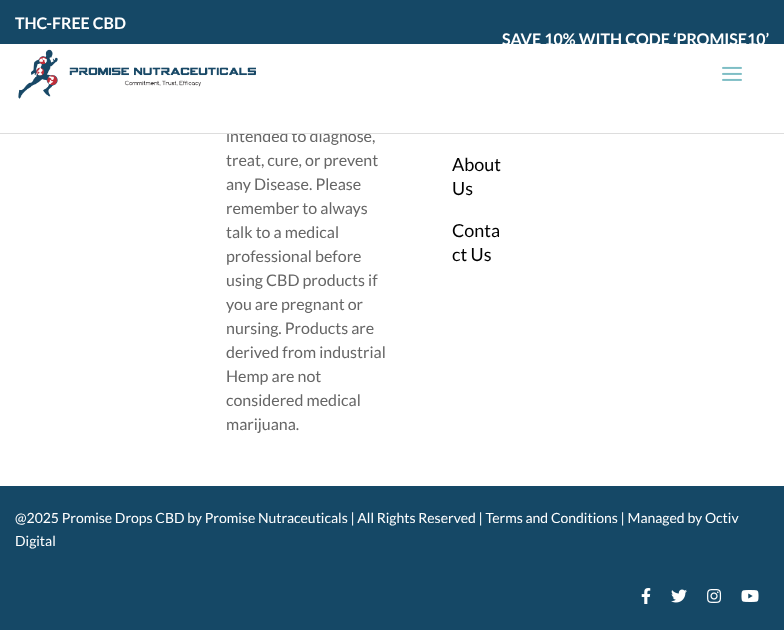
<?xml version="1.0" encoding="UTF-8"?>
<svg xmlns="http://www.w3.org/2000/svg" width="784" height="630">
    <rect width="100%" height="100%" fill="#FFFFFF"/>
    <rect x="0" y="0" width="784" height="44" fill="#154866"/>
    <text x="15" y="29" font-family="Lato" font-size="16" font-weight="700" fill="#FFFFFF">THC-FREE CBD</text>
    <text x="502" y="45" font-family="Lato" font-size="16" font-weight="700" fill="#FFFFFF">SAVE 10% WITH CODE ‘PROMISE10’</text>
    <text x="226" y="142" font-family="Lato" font-size="16" fill="#666666">intended to diagnose,</text>
    <rect x="227" y="130" width="95" height="3" fill="#FFFFFF"/>
    <rect x="0" y="133" width="784" height="1" fill="#DDDDDD"/>
    <image x="18" y="49" width="238" height="50" href="img_01.png"/>
    <image x="722" y="66" width="20" height="15" href="img_02.png"/>
    <text font-family="Lato" font-size="16" fill="#666666">
        <tspan x="226" y="166">treat, cure, or prevent</tspan>
        <tspan x="226" y="190">any Disease. Please</tspan>
        <tspan x="226" y="214">remember to always</tspan>
        <tspan x="226" y="238">talk to a medical</tspan>
        <tspan x="226" y="262">professional before</tspan>
        <tspan x="226" y="286">using CBD products if</tspan>
        <tspan x="226" y="310">you are pregnant or</tspan>
        <tspan x="226" y="334">nursing. Products are</tspan>
        <tspan x="226" y="358">derived from industrial</tspan>
        <tspan x="226" y="382">Hemp are not</tspan>
        <tspan x="226" y="406">considered medical</tspan>
        <tspan x="226" y="430">marijuana.</tspan>
    </text>
    <text font-family="Lato" font-size="18" fill="#000000">
        <tspan x="452" y="171">About</tspan>
        <tspan x="452" y="195">Us</tspan>
    </text>
    <text font-family="Lato" font-size="18" fill="#000000">
        <tspan x="452" y="237">Conta</tspan>
        <tspan x="452" y="261">ct Us</tspan>
    </text>
    <rect x="0" y="486" width="784" height="144" fill="#154866"/>
    <text font-family="Lato" font-size="14" fill="#FFFFFF">
        <tspan x="15" y="523">@2025 Promise Drops CBD by Promise Nutraceuticals | All Rights Reserved | Terms and Conditions | Managed by Octiv</tspan>
        <tspan x="15" y="546">Digital</tspan>
    </text>
    <image x="641" y="588" width="10" height="16" href="img_03.png"/>
    <image x="671" y="589" width="16" height="14" href="img_04.png"/>
    <image x="707" y="589" width="15" height="14" href="img_05.png"/>
    <image x="741" y="590" width="18" height="12" href="img_06.png"/>
</svg>
